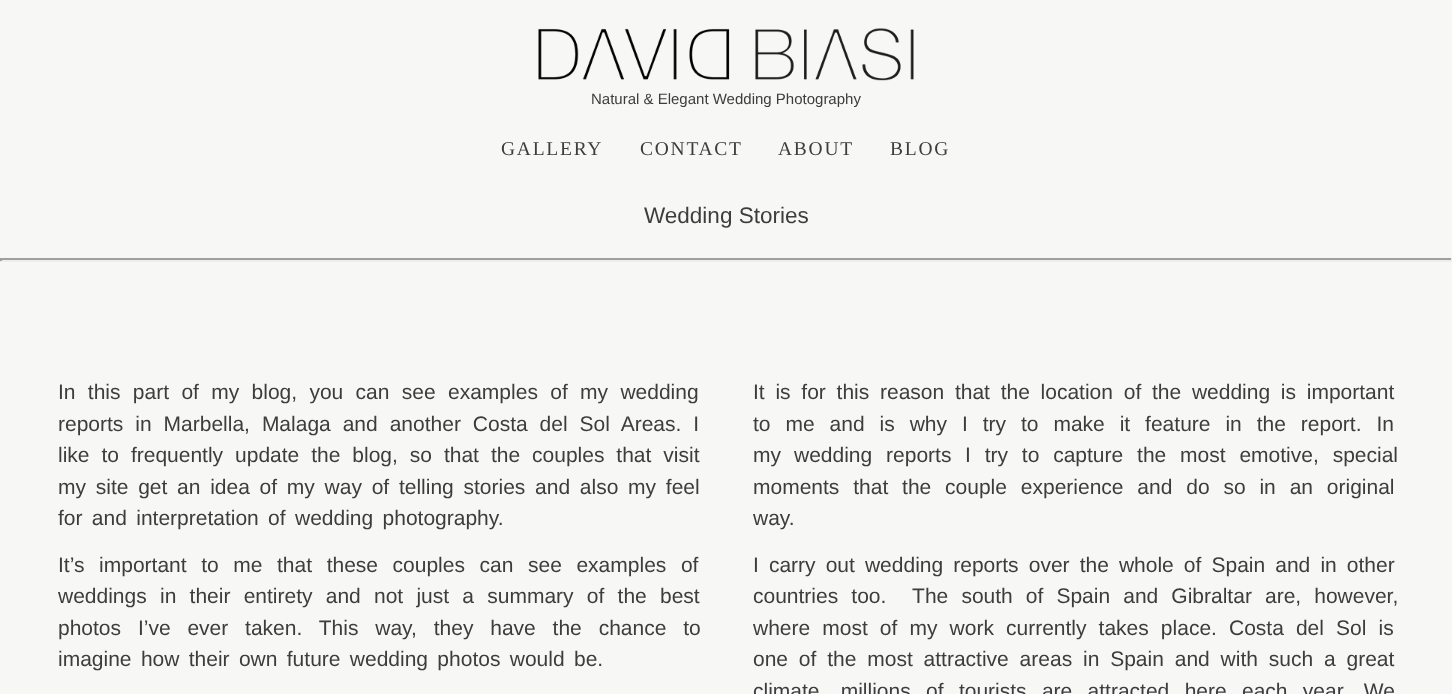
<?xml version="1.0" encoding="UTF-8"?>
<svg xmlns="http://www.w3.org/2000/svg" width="1452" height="694">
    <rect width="100%" height="100%" fill="#F7F7F5"/>
    <image x="538" y="28" width="376" height="53" href="img_01.png"/>
    <text x="591" y="104" font-family="Liberation Sans" font-size="15" fill="#3D3D3D">Natural &amp; Elegant Wedding Photography</text>
    <text x="501" y="155" font-family="Liberation Serif" font-size="19.5" letter-spacing="1.75" fill="#3D3D3D">GALLERY</text>
    <text x="640" y="155" font-family="Liberation Serif" font-size="19.5" letter-spacing="1.75" fill="#3D3D3D">CONTACT</text>
    <text x="778" y="155" font-family="Liberation Serif" font-size="19.5" letter-spacing="1.75" fill="#3D3D3D">ABOUT</text>
    <text x="890" y="155" font-family="Liberation Serif" font-size="19.5" letter-spacing="1.75" fill="#3D3D3D">BLOG</text>
    <text x="644" y="223" font-family="Liberation Sans" font-size="22.5" fill="#3D3D3D">Wedding Stories</text>
    <rect x="0" y="258" width="1452" height="2" fill="#9F9F9F"/>
    <rect x="1451" y="258" width="1" height="3" fill="#EEEEEE"/>
    <rect x="0" y="260" width="1452" height="2" fill="#EEEEEE"/>
    <rect x="0" y="258" width="2" height="3" fill="#9F9F9F"/>
    <text font-family="Liberation Sans" font-size="21" fill="#3D3D3D">
        <tspan x="58" y="399" word-spacing="6.5">In this part of my blog, you can see examples of my wedding</tspan>
        <tspan x="58" y="431" word-spacing="6.1">reports in Marbella, Malaga and another Costa del Sol Areas. I</tspan>
        <tspan x="58" y="462" word-spacing="6.1">like to frequently update the blog, so that the couples that visit</tspan>
        <tspan x="58" y="494" word-spacing="3.9">my site get an idea of my way of telling stories and also my feel</tspan>
        <tspan x="58" y="525" word-spacing="3.5">for and interpretation of wedding photography.</tspan>
    </text>
    <text font-family="Liberation Sans" font-size="21" fill="#3D3D3D">
        <tspan x="58" y="572" word-spacing="8.75">It’s important to me that these couples can see examples of</tspan>
        <tspan x="58" y="603" word-spacing="7.4">weddings in their entirety and not just a summary of the best</tspan>
        <tspan x="58" y="635" word-spacing="11">photos I’ve ever taken. This way, they have the chance to</tspan>
        <tspan x="58" y="666" word-spacing="3.5">imagine how their own future wedding photos would be.</tspan>
    </text>
    <text font-family="Liberation Sans" font-size="21" fill="#3D3D3D">
        <tspan x="753" y="399" word-spacing="4.9">It is for this reason that the location of the wedding is important</tspan>
        <tspan x="753" y="431" word-spacing="9.1">to me and is why I try to make it feature in the report. In</tspan>
        <tspan x="753" y="462">my</tspan>
    </text>
    <text x="794" y="462" word-spacing="8" font-family="Liberation Sans" font-size="21" fill="#3D3D3D">wedding reports</text>
    <text x="965" y="462" word-spacing="8" font-family="Liberation Sans" font-size="21" fill="#3D3D3D">I try to capture the most emotive, special</text>
    <text font-family="Liberation Sans" font-size="21" fill="#3D3D3D">
        <tspan x="753" y="494" word-spacing="8">moments that the couple experience and do so in an original</tspan>
        <tspan x="753" y="525">way.</tspan>
    </text>
    <text font-family="Liberation Sans" font-size="21" fill="#3D3D3D" xml:space="preserve"><tspan x="753" y="572" word-spacing="4.25">I carry out wedding reports over the whole of Spain and in other</tspan><tspan x="753" y="603" word-spacing="7.25">countries too.  The south of Spain and Gibraltar are, however,</tspan><tspan x="753" y="635" word-spacing="6.25">where most of my work currently takes place. Costa del Sol is</tspan><tspan x="753" y="666" word-spacing="5">one of the most attractive areas in Spain and with such a great</tspan><tspan x="753" y="698" word-spacing="9.5">climate, millions of tourists are attracted here each year. We</tspan></text>
</svg>
